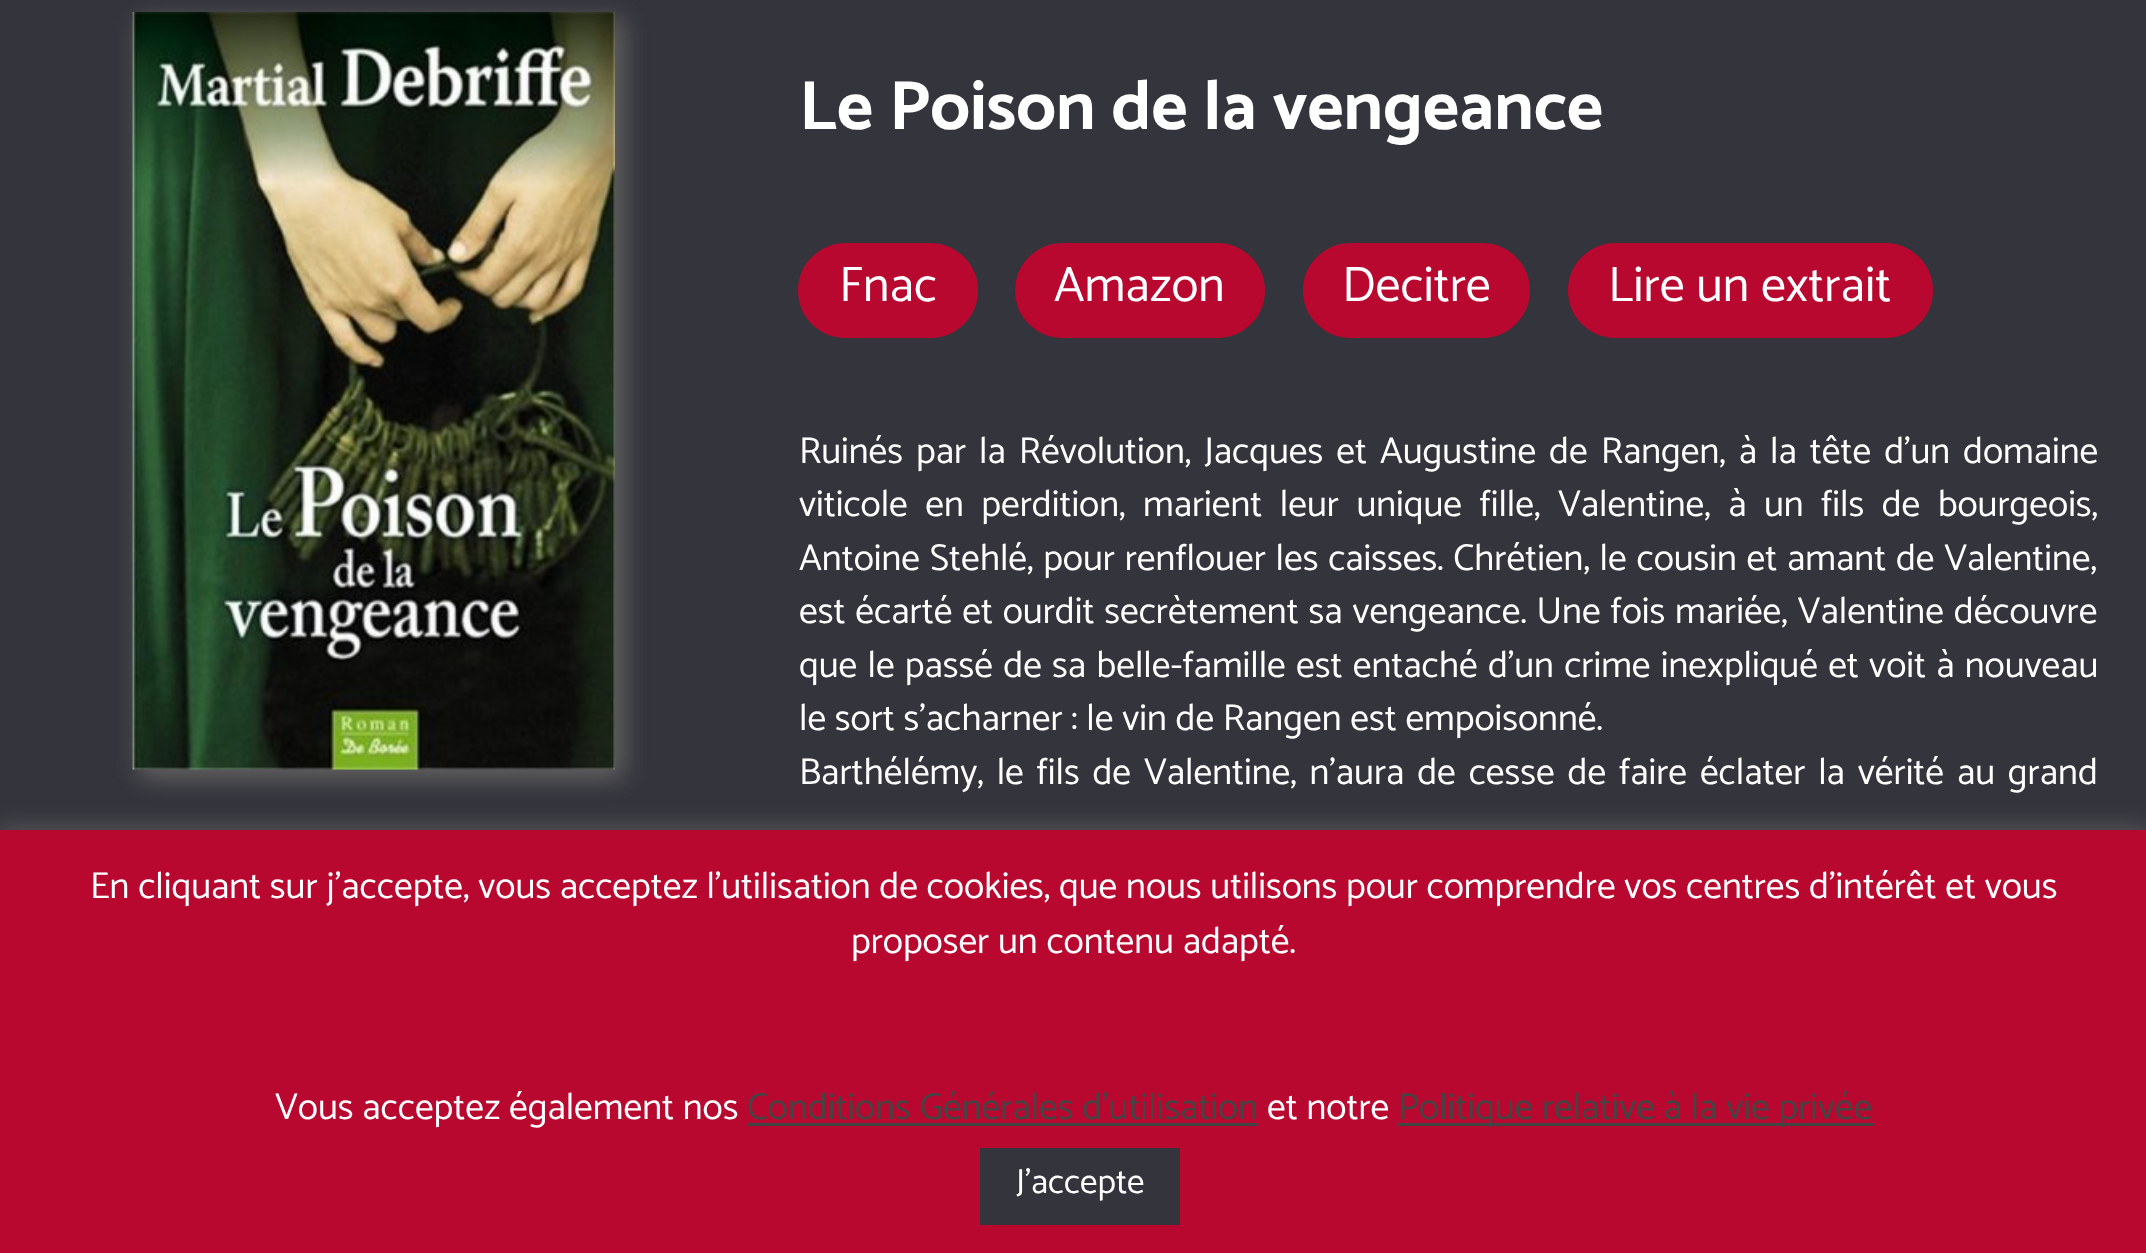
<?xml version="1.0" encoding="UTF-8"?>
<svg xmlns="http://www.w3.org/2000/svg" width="2146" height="1253">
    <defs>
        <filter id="blur1" x="-50%" y="-200%" width="200%" height="500%"><feGaussianBlur stdDeviation="12.5"/></filter>
    </defs>
    <rect width="100%" height="100%" fill="#34343C"/>
    <rect x="140" y="20" width="483" height="758" fill="#656565" filter="url(#blur1)"/>
    <image x="132" y="12" width="483" height="758" href="img_01.png"/>
    <text x="799" y="129" font-family="Catamaran" font-size="70" font-weight="700" fill="#FFFFFF">Le Poison de la vengeance</text>
    <rect x="799.5" y="244.5" width="177" height="92" rx="46" fill="#B9082F" stroke="#B9082F" stroke-width="3"/>
    <text x="839" y="301" font-family="Catamaran" font-size="50" fill="#FFFFFF">Fnac</text>
    <rect x="1016.5" y="244.5" width="247" height="92" rx="46" fill="#B9082F" stroke="#B9082F" stroke-width="3"/>
    <text x="1054" y="301" font-family="Catamaran" font-size="50" fill="#FFFFFF">Amazon</text>
    <rect x="1304.5" y="244.5" width="224" height="92" rx="46" fill="#B9082F" stroke="#B9082F" stroke-width="3"/>
    <text x="1342" y="301" font-family="Catamaran" font-size="50" fill="#FFFFFF">Decitre</text>
    <rect x="1569.5" y="244.5" width="362" height="92" rx="46" fill="#B9082F" stroke="#B9082F" stroke-width="3"/>
    <text x="1608" y="301" font-family="Catamaran" font-size="50" fill="#FFFFFF">Lire un extrait</text>
    <text font-family="Catamaran" font-size="37.5" fill="#FFFFFF">
        <tspan x="799" y="463" word-spacing="4.25">Ruinés par la Révolution, Jacques et Augustine de Rangen, à la tête d’un domaine</tspan>
        <tspan x="799" y="516" word-spacing="8.75">viticole en perdition, marient leur unique fille, Valentine, à un fils de bourgeois,</tspan>
        <tspan x="799" y="570" word-spacing="1">Antoine Stehlé, pour renflouer les caisses. Chrétien, le cousin et amant de Valentine,</tspan>
        <tspan x="799" y="623" word-spacing="1.1">est écarté et ourdit secrètement sa vengeance. Une fois mariée, Valentine découvre</tspan>
        <tspan x="799" y="677" word-spacing="1.5">que le passé de sa belle-famille est entaché d’un crime inexpliqué et voit à nouveau</tspan>
        <tspan x="799" y="730">le sort s’acharner : le vin de Rangen est empoisonné.</tspan>
        <tspan x="799" y="784" word-spacing="4.1">Barthélémy, le fils de Valentine, n’aura de cesse de faire éclater la vérité au grand</tspan>
    </text>
    <rect x="0" y="828" width="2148" height="425" fill="#ACABAB" fill-opacity="0.3" filter="url(#blur1)"/>
    <rect x="0" y="830" width="2146" height="423" fill="#B9082F"/>
    <text x="90" y="898" font-family="Catamaran" font-size="37.5" fill="#FFFFFF">En cliquant sur j'accepte, vous acceptez l'utilisation de cookies, que nous utilisons pour comprendre vos centres d'intérêt et vous</text>
    <text x="851" y="953" font-family="Catamaran" font-size="37.5" fill="#FFFFFF">proposer un contenu adapté.</text>
    <text x="275" y="1119" font-family="Catamaran" font-size="37.5" fill="#FFFFFF">Vous acceptez également nos</text>
    <text x="747" y="1119" font-family="Catamaran" font-size="37.5" fill="#444444">Conditions Générales d’utilisation</text>
    <rect x="748" y="1123" width="510" height="3" fill="#444444"/>
    <text x="1267" y="1119" font-family="Catamaran" font-size="37.5" fill="#FFFFFF">et notre</text>
    <rect x="1398" y="1123" width="475" height="3" fill="#444444"/>
    <text x="1398" y="1119" font-family="Catamaran" font-size="37.5" fill="#444444">Politique relative à la vie privée</text>
    <rect x="980" y="1148" width="200" height="77" fill="#34343C"/>
    <text x="1016" y="1193" font-family="Catamaran" font-size="35" fill="#FFFFFF">J'accepte</text>
</svg>
